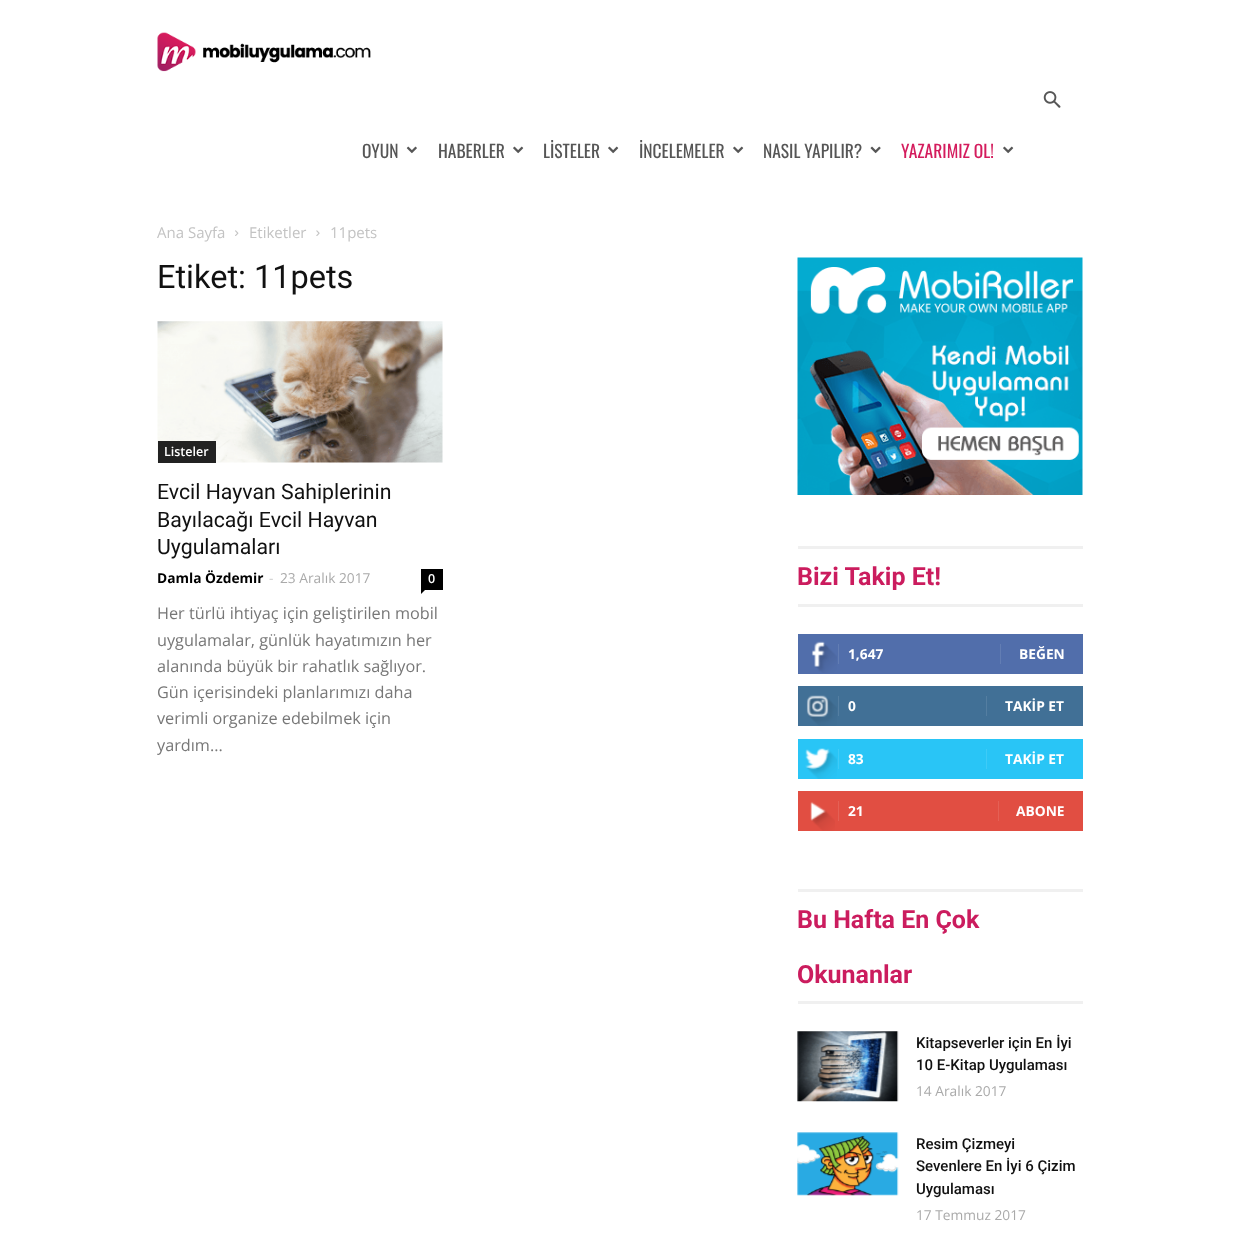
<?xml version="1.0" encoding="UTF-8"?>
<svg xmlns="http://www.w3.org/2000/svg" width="1238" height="1240">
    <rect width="100%" height="100%" fill="#FFFFFF"/>
    <image x="1043" y="91" width="18" height="17" href="img_01.png"/>
    <image x="157" y="32" width="214" height="40" href="img_02.png"/>
    <text x="362" y="158" font-family="Oswald" font-size="17.5" fill="#565656">OYUN</text>
    <image x="406" y="146" width="11" height="8" href="img_03.png"/>
    <text x="438" y="158" font-family="Oswald" font-size="17.5" fill="#565656">HABERLER</text>
    <image x="513" y="146" width="11" height="8" href="img_04.png"/>
    <text x="543" y="158" font-family="Oswald" font-size="17.5" fill="#565656">LİSTELER</text>
    <image x="608" y="146" width="11" height="8" href="img_04.png"/>
    <text x="639" y="158" font-family="Oswald" font-size="17.5" fill="#565656">İNCELEMELER</text>
    <image x="733" y="146" width="11" height="8" href="img_04.png"/>
    <text x="763" y="158" font-family="Oswald" font-size="17.5" fill="#565656">NASIL YAPILIR?</text>
    <image x="870" y="146" width="11" height="8" href="img_05.png"/>
    <text x="901" y="158" font-family="Oswald" font-size="17.5" fill="#D41C5D">YAZARIMIZ OL!</text>
    <image x="1003" y="146" width="11" height="8" href="img_04.png"/>
    <text x="157" y="238" font-family="Open Sans" font-size="15" fill="#C3C3C3">Ana Sayfa</text>
    <image x="235" y="230" width="4" height="6" href="img_06.png"/>
    <text x="249" y="238" font-family="Open Sans" font-size="15" fill="#C3C3C3">Etiketler</text>
    <image x="316" y="230" width="4" height="6" href="img_07.png"/>
    <text x="330" y="238" font-family="Open Sans" font-size="15" fill="#C3C3C3">11pets</text>
    <text x="157" y="288" font-family="Roboto" font-size="32.5" fill="#111111">Etiket: 11pets</text>
    <image x="157" y="321" width="286" height="142" href="img_08.png"/>
    <rect x="158" y="441" width="58" height="22" fill="#222222"/>
    <text x="164" y="456" font-family="Open Sans" font-size="12.5" font-weight="600" fill="#FFFFFF">Listeler</text>
    <text font-family="Roboto" font-size="21.25" fill="#111111">
        <tspan x="157" y="499">Evcil Hayvan Sahiplerinin</tspan>
        <tspan x="157" y="527">Bayılacağı Evcil Hayvan</tspan>
        <tspan x="157" y="554">Uygulamaları</tspan>
    </text>
    <text x="157" y="583" font-family="Open Sans" font-size="13.75" font-weight="700" fill="#000000">Damla Özdemir</text>
    <text x="269" y="583" font-family="Open Sans" font-size="13.75" fill="#CCCCCC">-</text>
    <text x="280" y="583" font-family="Open Sans" font-size="13.75" fill="#AAAAAA">23 Aralık 2017</text>
    <rect x="421" y="569" width="22" height="21" fill="#000000"/>
    <text x="428" y="583" font-family="Open Sans" font-size="12.5" font-weight="600" fill="#FFFFFF">0</text>
    <path d="M 421 590 H 425 L 421 594 Z" fill="#000000"/>
    <text font-family="Open Sans" font-size="16.25" fill="#777777">
        <tspan x="157" y="619">Her türlü ihtiyaç için geliştirilen mobil</tspan>
        <tspan x="157" y="646">uygulamalar, günlük hayatımızın her</tspan>
        <tspan x="157" y="672">alanında büyük bir rahatlık sağlıyor.</tspan>
        <tspan x="157" y="698">Gün içerisindeki planlarımızı daha</tspan>
        <tspan x="157" y="724">verimli organize edebilmek için</tspan>
        <tspan x="157" y="751">yardım...</tspan>
    </text>
    <image x="797" y="257" width="286" height="238" href="img_09.png"/>
    <rect x="798" y="546" width="285" height="3" fill="#F0F0F0"/>
    <text x="797" y="585" font-family="Roboto" font-size="25" font-weight="700" fill="#CB1C5E">Bizi Takip Et!</text>
    <rect x="798" y="604" width="285" height="3" fill="#F0F0F0"/>
    <rect x="798" y="634" width="285" height="40" fill="#516EAB"/>
    <image x="811" y="641" width="26" height="32" href="img_10.png"/>
    <rect x="838" y="644" width="1" height="20" fill="#627DB3"/>
    <text x="848" y="659" font-family="Open Sans" font-size="13.75" font-weight="700" fill="#FFFFFF">1,647</text>
    <rect x="1000" y="644" width="1" height="20" fill="#627DB3"/>
    <text x="1019" y="659" font-family="Open Sans" font-size="13.75" font-weight="700" fill="#FFFFFF">BEĞEN</text>
    <rect x="798" y="686" width="285" height="40" fill="#417096"/>
    <image x="806" y="695" width="31" height="31" href="img_11.png"/>
    <rect x="838" y="696" width="1" height="20" fill="#547EA1"/>
    <text x="848" y="711" font-family="Open Sans" font-size="13.75" font-weight="700" fill="#FFFFFF">0</text>
    <rect x="986" y="696" width="1" height="20" fill="#547EA1"/>
    <text x="1005" y="711" font-family="Open Sans" font-size="13.75" font-weight="700" fill="#FFFFFF">TAKİP ET</text>
    <rect x="798" y="739" width="285" height="40" fill="#29C5F6"/>
    <image x="805" y="748" width="32" height="31" href="img_12.png"/>
    <rect x="838" y="749" width="1" height="20" fill="#3ECBF7"/>
    <text x="848" y="764" font-family="Open Sans" font-size="13.75" font-weight="700" fill="#FFFFFF">83</text>
    <rect x="986" y="749" width="1" height="20" fill="#3ECBF7"/>
    <text x="1005" y="764" font-family="Open Sans" font-size="13.75" font-weight="700" fill="#FFFFFF">TAKİP ET</text>
    <rect x="798" y="791" width="285" height="40" fill="#E14E42"/>
    <image x="810" y="801" width="25" height="30" href="img_13.png"/>
    <rect x="838" y="801" width="1" height="20" fill="#E46055"/>
    <text x="848" y="816" font-family="Open Sans" font-size="13.75" font-weight="700" fill="#FFFFFF">21</text>
    <rect x="998" y="801" width="1" height="20" fill="#E46055"/>
    <text x="1016" y="816" font-family="Open Sans" font-size="13.75" font-weight="700" fill="#FFFFFF">ABONE</text>
    <rect x="798" y="889" width="285" height="3" fill="#F0F0F0"/>
    <text x="797" y="928" font-family="Roboto" font-size="25" font-weight="700" fill="#CB1C5E">Bu Hafta En Çok</text>
    <text x="797" y="983" font-family="Roboto" font-size="25" font-weight="700" fill="#CB1C5E">Okunanlar</text>
    <rect x="798" y="1001" width="285" height="3" fill="#F0F0F0"/>
    <image x="797" y="1031" width="102" height="71" href="img_14.png"/>
    <text font-family="Roboto" font-size="15" font-weight="500" fill="#111111">
        <tspan x="916" y="1048">Kitapseverler için En İyi</tspan>
        <tspan x="916" y="1070">10 E-Kitap Uygulaması</tspan>
    </text>
    <text x="916" y="1096" font-family="Open Sans" font-size="13.75" fill="#AAAAAA">14 Aralık 2017</text>
    <image x="797" y="1132" width="102" height="64" href="img_15.png"/>
    <text font-family="Roboto" font-size="15" font-weight="500" fill="#111111">
        <tspan x="916" y="1149">Resim Çizmeyi</tspan>
        <tspan x="916" y="1171">Sevenlere En İyi 6 Çizim</tspan>
        <tspan x="916" y="1194">Uygulaması</tspan>
    </text>
    <text x="916" y="1220" font-family="Open Sans" font-size="13.75" fill="#AAAAAA">17 Temmuz 2017</text>
</svg>
